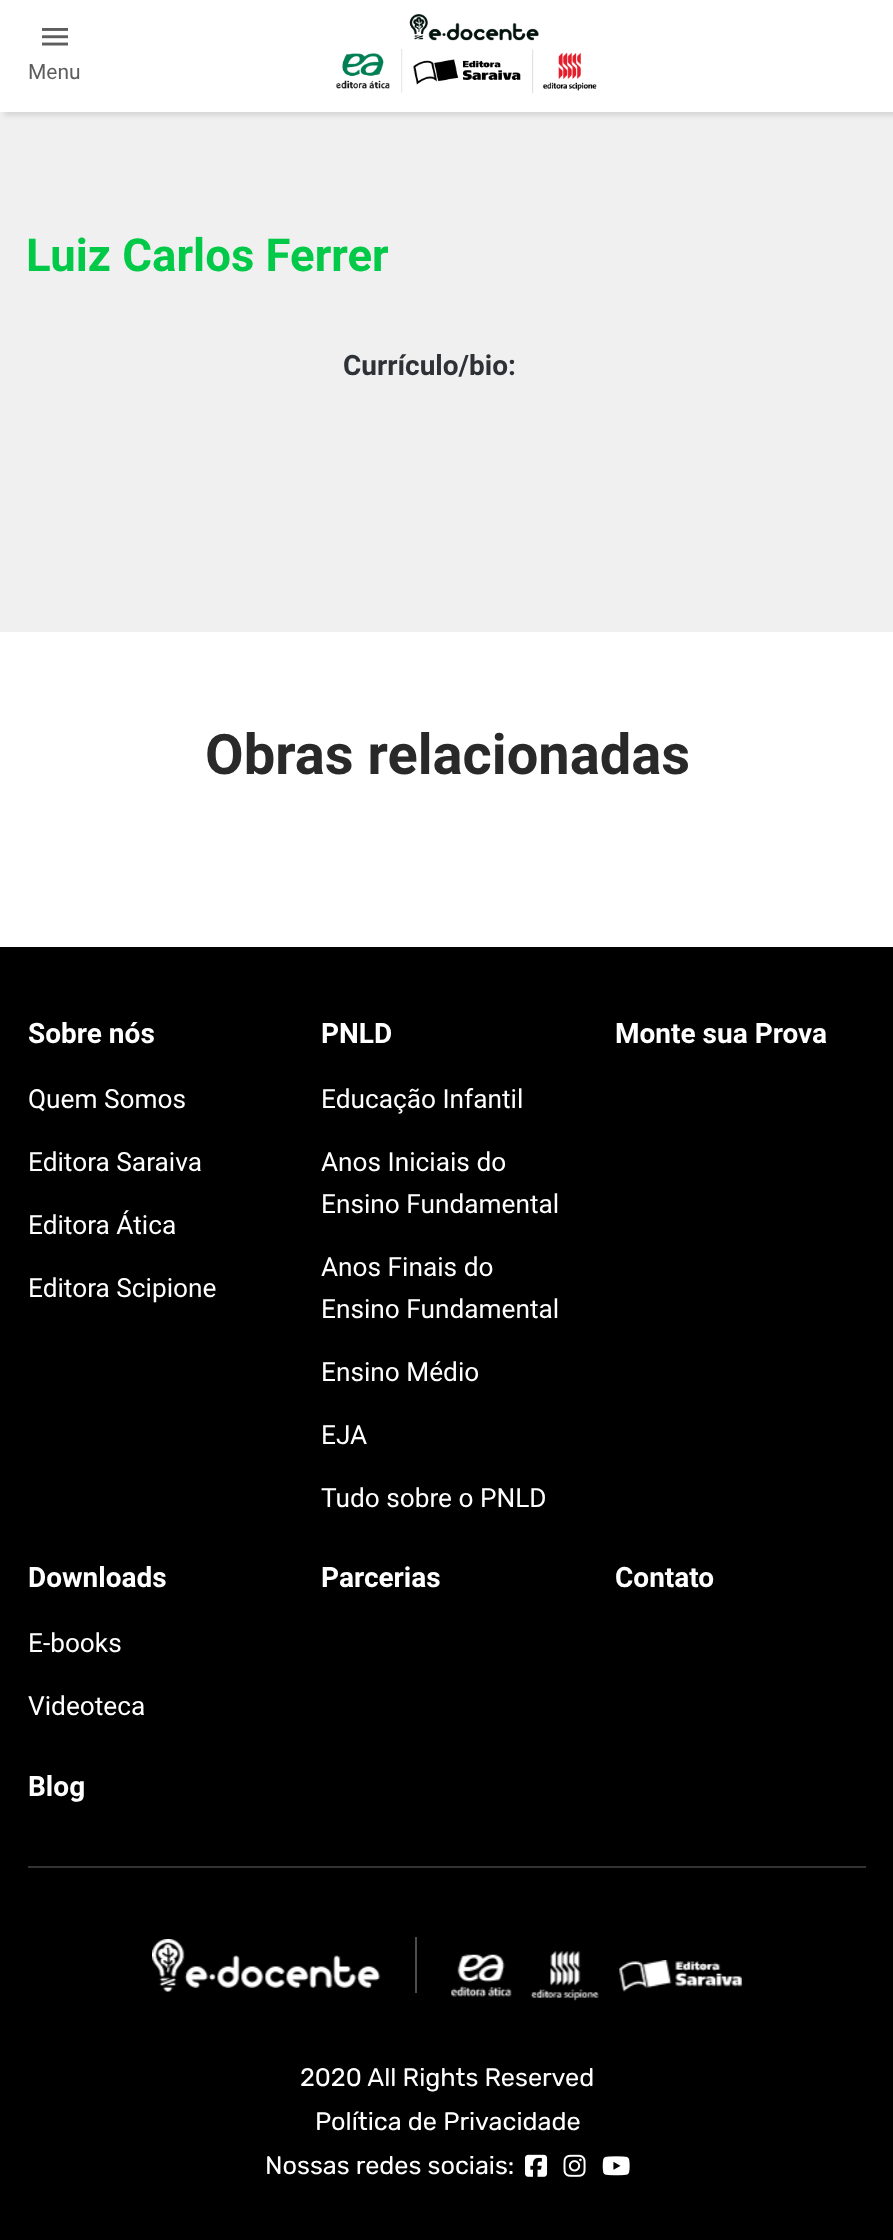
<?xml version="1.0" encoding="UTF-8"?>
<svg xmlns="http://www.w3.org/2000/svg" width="893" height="2240">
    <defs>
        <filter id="blur1" x="-50%" y="-200%" width="200%" height="500%"><feGaussianBlur stdDeviation="2.5"/></filter>
    </defs>
    <rect width="100%" height="100%" fill="#F0F0F0"/>
    <rect x="4" y="4" width="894" height="112" fill="#000000" fill-opacity="0.1" filter="url(#blur1)"/>
    <rect x="0" y="0" width="893" height="112" fill="#FFFFFF"/>
    <image x="42" y="28" width="26" height="18" href="img_01.png"/>
    <text x="28" y="79" font-family="Roboto" font-size="21" fill="#5E5E5E">Menu</text>
    <image x="336" y="14" width="261" height="80" href="img_02.png"/>
    <text x="26" y="271" font-family="Roboto" font-size="45.5" font-weight="700" fill="#02C948">Luiz Carlos Ferrer</text>
    <text x="343" y="375" font-family="Roboto" font-size="28" font-weight="700" fill="#2E3135">Currículo/bio:</text>
    <rect x="0" y="632" width="893" height="315" fill="#FFFFFF"/>
    <text x="205" y="774" font-family="Roboto" font-size="56" font-weight="700" fill="#292929">Obras relacionadas</text>
    <rect x="0" y="947" width="893" height="1293" fill="#000000"/>
    <rect x="28" y="1866" width="838" height="2" fill="#333333"/>
    <text x="28" y="1043" font-family="Roboto" font-size="28" font-weight="700" fill="#FFFFFF">Sobre nós</text>
    <text x="28" y="1108" font-family="Roboto" font-size="26.25" fill="#FFFFFF">Quem Somos</text>
    <text x="28" y="1171" font-family="Roboto" font-size="26.25" fill="#FFFFFF">Editora Saraiva</text>
    <text x="28" y="1234" font-family="Roboto" font-size="26.25" fill="#FFFFFF">Editora Ática</text>
    <text x="28" y="1297" font-family="Roboto" font-size="26.25" fill="#FFFFFF">Editora Scipione</text>
    <text x="321" y="1043" font-family="Roboto" font-size="28" font-weight="700" fill="#FFFFFF">PNLD</text>
    <text x="321" y="1108" font-family="Roboto" font-size="26.25" fill="#FFFFFF">Educação Infantil</text>
    <text font-family="Roboto" font-size="26.25" fill="#FFFFFF">
        <tspan x="321" y="1171">Anos Iniciais do</tspan>
        <tspan x="321" y="1213">Ensino Fundamental</tspan>
    </text>
    <text font-family="Roboto" font-size="26.25" fill="#FFFFFF">
        <tspan x="321" y="1276">Anos Finais do</tspan>
        <tspan x="321" y="1318">Ensino Fundamental</tspan>
    </text>
    <text x="321" y="1381" font-family="Roboto" font-size="26.25" fill="#FFFFFF">Ensino Médio</text>
    <text x="321" y="1444" font-family="Roboto" font-size="26.25" fill="#FFFFFF">EJA</text>
    <text x="321" y="1507" font-family="Roboto" font-size="26.25" fill="#FFFFFF">Tudo sobre o PNLD</text>
    <text x="615" y="1043" font-family="Roboto" font-size="28" font-weight="700" fill="#FFFFFF">Monte sua Prova</text>
    <text x="28" y="1587" font-family="Roboto" font-size="28" font-weight="700" fill="#FFFFFF">Downloads</text>
    <text x="28" y="1652" font-family="Roboto" font-size="26.25" fill="#FFFFFF">E-books</text>
    <text x="28" y="1715" font-family="Roboto" font-size="26.25" fill="#FFFFFF">Videoteca</text>
    <text x="321" y="1587" font-family="Roboto" font-size="28" font-weight="700" fill="#FFFFFF">Parcerias</text>
    <text x="615" y="1587" font-family="Roboto" font-size="28" font-weight="700" fill="#FFFFFF">Contato</text>
    <text x="28" y="1796" font-family="Roboto" font-size="28" font-weight="700" fill="#FFFFFF">Blog</text>
    <image x="152" y="1939" width="229" height="53" href="img_03.png"/>
    <rect x="415" y="1937" width="2" height="56" fill="#4D4D4D"/>
    <image x="451" y="1954" width="61" height="43" href="img_04.png"/>
    <image x="531" y="1951" width="68" height="50" href="img_05.png"/>
    <image x="619" y="1960" width="123" height="32" href="img_06.png"/>
    <text x="300" y="2086" font-family="Rubik" font-size="25.25" fill="#FFFFFF">2020 All Rights Reserved</text>
    <text x="315" y="2130" font-family="Rubik" font-size="25.25" fill="#FFFFFF">Política de Privacidade</text>
    <text x="265" y="2174" font-family="Rubik" font-size="25.25" fill="#FFFFFF">Nossas redes sociais:</text>
    <image x="525" y="2154" width="23" height="23" href="img_07.png"/>
    <image x="563" y="2154" width="23" height="23" href="img_08.png"/>
    <image x="602" y="2156" width="28" height="20" href="img_09.png"/>
</svg>
